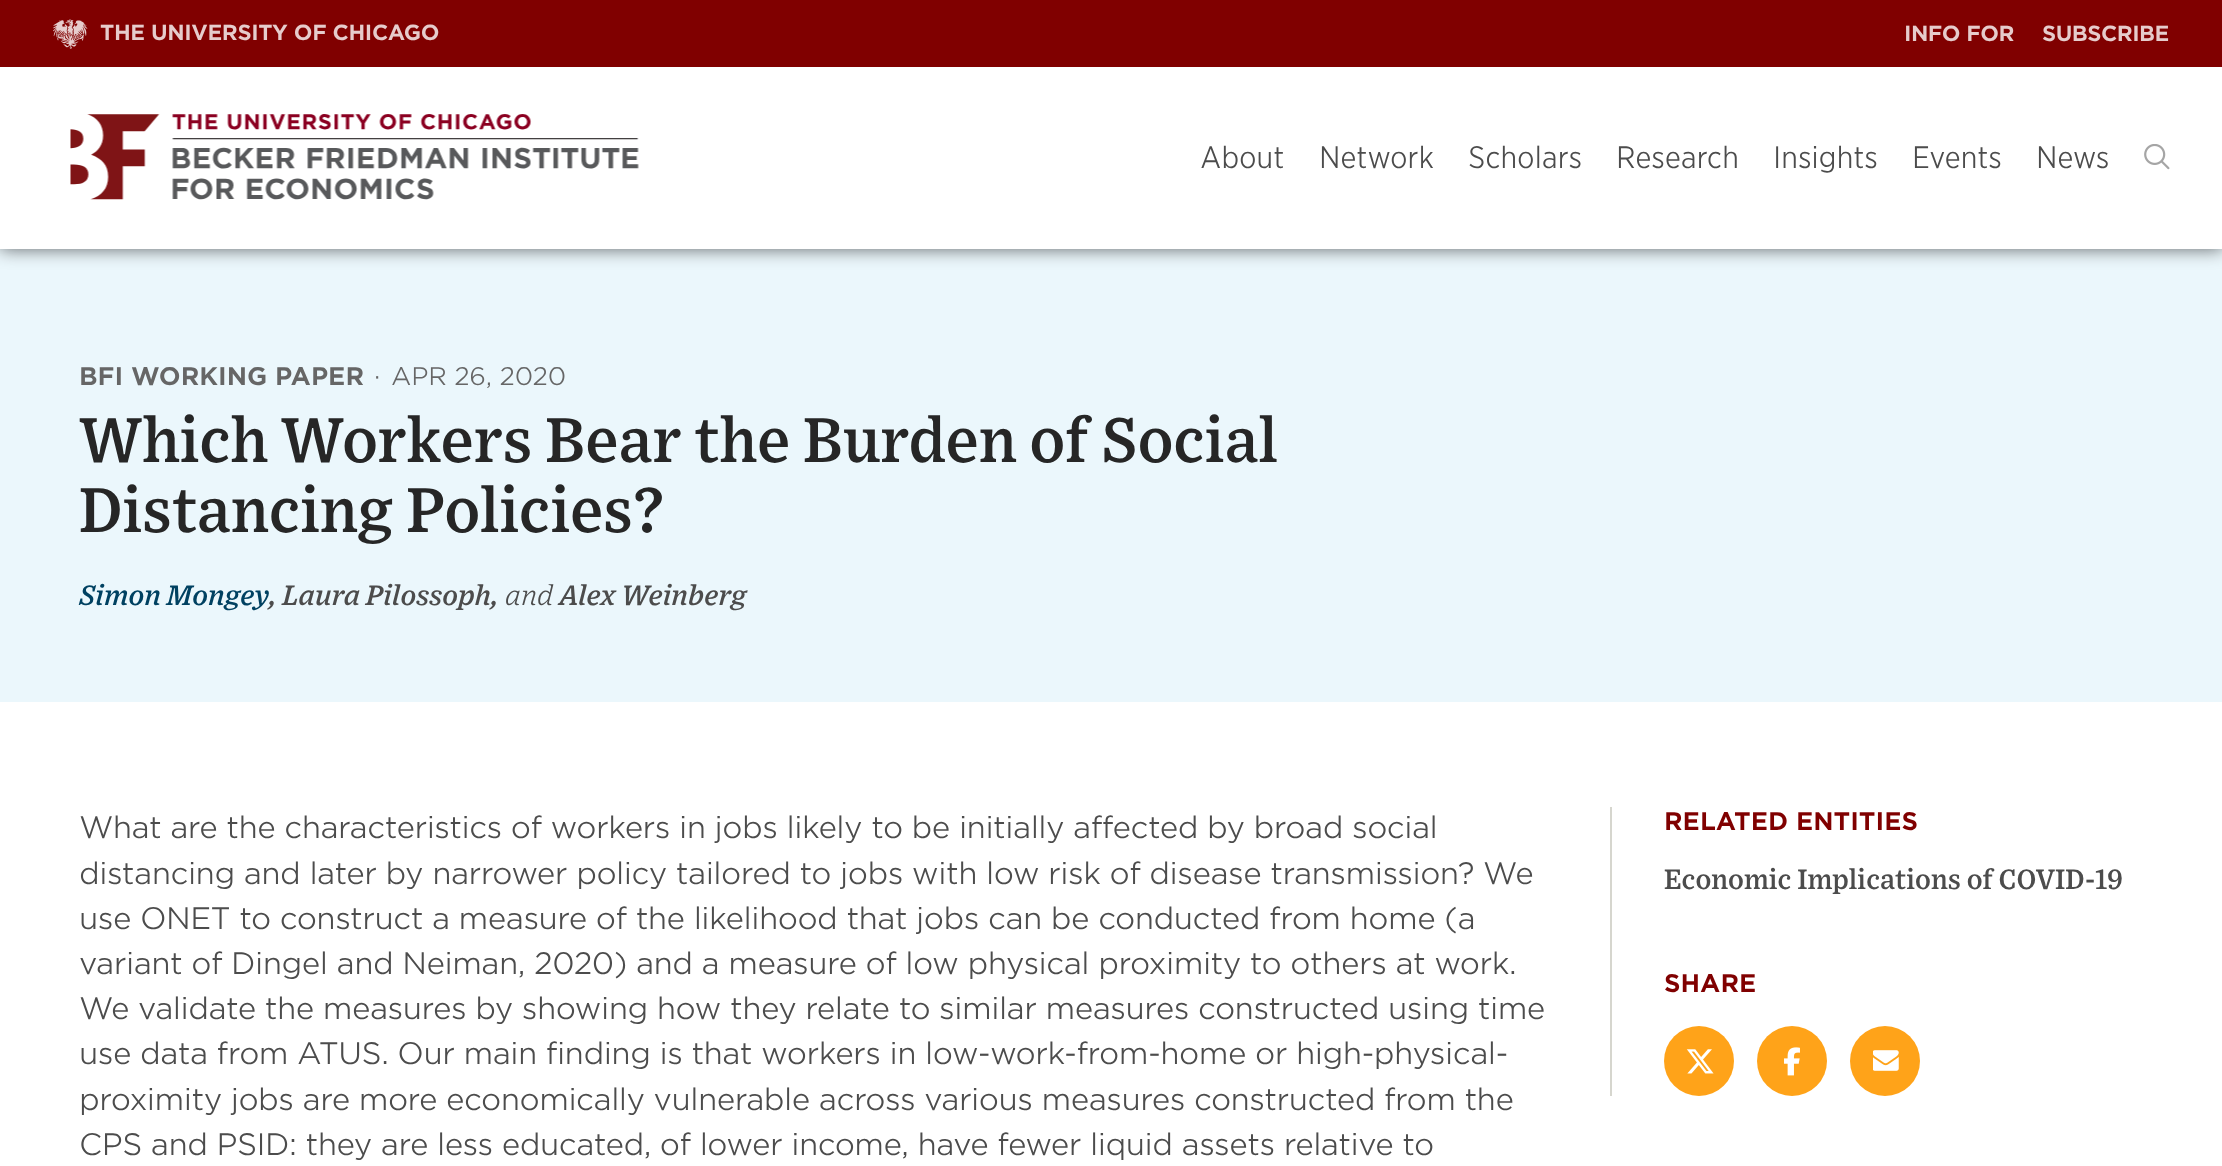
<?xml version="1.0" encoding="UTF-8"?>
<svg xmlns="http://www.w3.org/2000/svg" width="2222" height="1166">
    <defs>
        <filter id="blur1" x="-50%" y="-200%" width="200%" height="500%"><feGaussianBlur stdDeviation="9"/></filter>
    </defs>
    <rect width="100%" height="100%" fill="#FFFFFF"/>
    <rect x="0" y="249" width="2222" height="453" fill="#EBF7FC"/>
    <rect x="0" y="0" width="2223" height="249" fill="#000000" fill-opacity="0.6" filter="url(#blur1)"/>
    <rect x="0" y="67" width="2222" height="182" fill="#FFFFFF"/>
    <rect x="0" y="0" width="2222" height="67" fill="#800000"/>
    <image x="53" y="19" width="35" height="30" href="img_01.png"/>
    <text x="100" y="40" font-family="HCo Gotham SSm" font-size="21" font-weight="700" letter-spacing="-0.4" fill="#E6CCCC">THE UNIVERSITY OF CHICAGO</text>
    <text x="1904" y="41" font-family="HCo Gotham SSm" font-size="21" font-weight="700" letter-spacing="-0.5" fill="#E6CCCC">INFO FOR</text>
    <text x="2042" y="41" font-family="HCo Gotham SSm" font-size="21" font-weight="700" letter-spacing="-0.5" fill="#E6CCCC">SUBSCRIBE</text>
    <image x="70" y="114" width="569" height="86" href="img_02.png"/>
    <text x="1200" y="168" font-family="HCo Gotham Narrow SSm" font-size="29.75" font-weight="300" letter-spacing="-0.25" fill="#4C4C4C">About</text>
    <text x="1319" y="168" font-family="HCo Gotham Narrow SSm" font-size="29.75" font-weight="300" letter-spacing="-0.25" fill="#4C4C4C">Network</text>
    <text x="1468" y="168" font-family="HCo Gotham Narrow SSm" font-size="29.75" font-weight="300" letter-spacing="-0.25" fill="#4C4C4C">Scholars</text>
    <text x="1616" y="168" font-family="HCo Gotham Narrow SSm" font-size="29.75" font-weight="300" letter-spacing="-0.25" fill="#4C4C4C">Research</text>
    <text x="1773" y="168" font-family="HCo Gotham Narrow SSm" font-size="29.75" font-weight="300" letter-spacing="-0.25" fill="#4C4C4C">Insights</text>
    <text x="1912" y="168" font-family="HCo Gotham Narrow SSm" font-size="29.75" font-weight="300" letter-spacing="-0.25" fill="#4C4C4C">Events</text>
    <text x="2036" y="168" font-family="HCo Gotham Narrow SSm" font-size="29.75" font-weight="300" letter-spacing="-0.25" fill="#4C4C4C">News</text>
    <image x="2144" y="144" width="26" height="26" href="img_03.png"/>
    <text x="79" y="385" font-family="HCo Gotham SSm" font-size="24.5" font-weight="700" fill="#666666">BFI WORKING PAPER</text>
    <text x="374" y="385" font-family="HCo Gotham SSm" font-size="24.5" font-weight="300" fill="#666666">·</text>
    <text x="391" y="385" font-family="HCo Gotham SSm" font-size="24.5" font-weight="300" letter-spacing="-0.25" fill="#666666">APR 26, 2020</text>
    <text font-family="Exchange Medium" font-size="63" font-weight="500" fill="#262626">
        <tspan x="79" y="462">Which Workers Bear the Burden of Social</tspan>
        <tspan x="79" y="532">Distancing Policies?</tspan>
    </text>
    <text x="79" y="605" font-family="Exchange Medium" font-size="28" font-weight="500" font-style="italic" fill="#004161">Simon Mongey</text>
    <text x="269" y="605" font-family="Exchange Medium" font-size="28" font-weight="500" font-style="italic" fill="#4C4C4C">, Laura Pilossoph,</text>
    <text x="505" y="605" font-family="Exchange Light" font-size="28" font-weight="300" font-style="italic" fill="#4C4C4C">and</text>
    <text x="559" y="605" font-family="Exchange Medium" font-size="28" font-weight="500" font-style="italic" fill="#4C4C4C">Alex Weinberg</text>
    <text font-family="HCo Gotham SSm" font-size="29.75" font-weight="300" letter-spacing="-0.53" fill="#4C4C4C">
        <tspan x="79" y="838">What are the characteristics of workers in jobs likely to be initially affected by broad social</tspan>
        <tspan x="79" y="884">distancing and later by narrower policy tailored to jobs with low risk of disease transmission? We</tspan>
        <tspan x="79" y="929">use ONET to construct a measure of the likelihood that jobs can be conducted from home (a</tspan>
        <tspan x="79" y="974">variant of Dingel and Neiman, 2020) and a measure of low physical proximity to others at work.</tspan>
        <tspan x="79" y="1019">We validate the measures by showing how they relate to similar measures constructed using time</tspan>
        <tspan x="79" y="1064">use data from ATUS. Our main finding is that workers in low-work-from-home or high-physical-</tspan>
        <tspan x="79" y="1110">proximity jobs are more economically vulnerable across various measures constructed from the</tspan>
        <tspan x="79" y="1155">CPS and PSID: they are less educated, of lower income, have fewer liquid assets relative to</tspan>
    </text>
    <rect x="1610" y="807" width="2" height="289" fill="#D6D6CE"/>
    <text x="1664" y="830" font-family="HCo Gotham SSm" font-size="24.5" font-weight="700" fill="#800000">RELATED ENTITIES</text>
    <text x="1664" y="889" font-family="Exchange Medium" font-size="28" font-weight="500" fill="#4C4C4C">Economic Implications of COVID-19</text>
    <text x="1664" y="992" font-family="HCo Gotham SSm" font-size="24.5" font-weight="700" fill="#800000">SHARE</text>
    <circle cx="1699" cy="1061" r="35" fill="#FFA319"/>
    <image x="1686" y="1049" width="28" height="25" href="img_04.png"/>
    <circle cx="1792" cy="1061" r="35" fill="#FFA319"/>
    <image x="1784" y="1047" width="16" height="29" href="img_05.png"/>
    <circle cx="1885" cy="1061" r="35" fill="#FFA319"/>
    <image x="1873" y="1050" width="26" height="21" href="img_06.png"/>
</svg>
